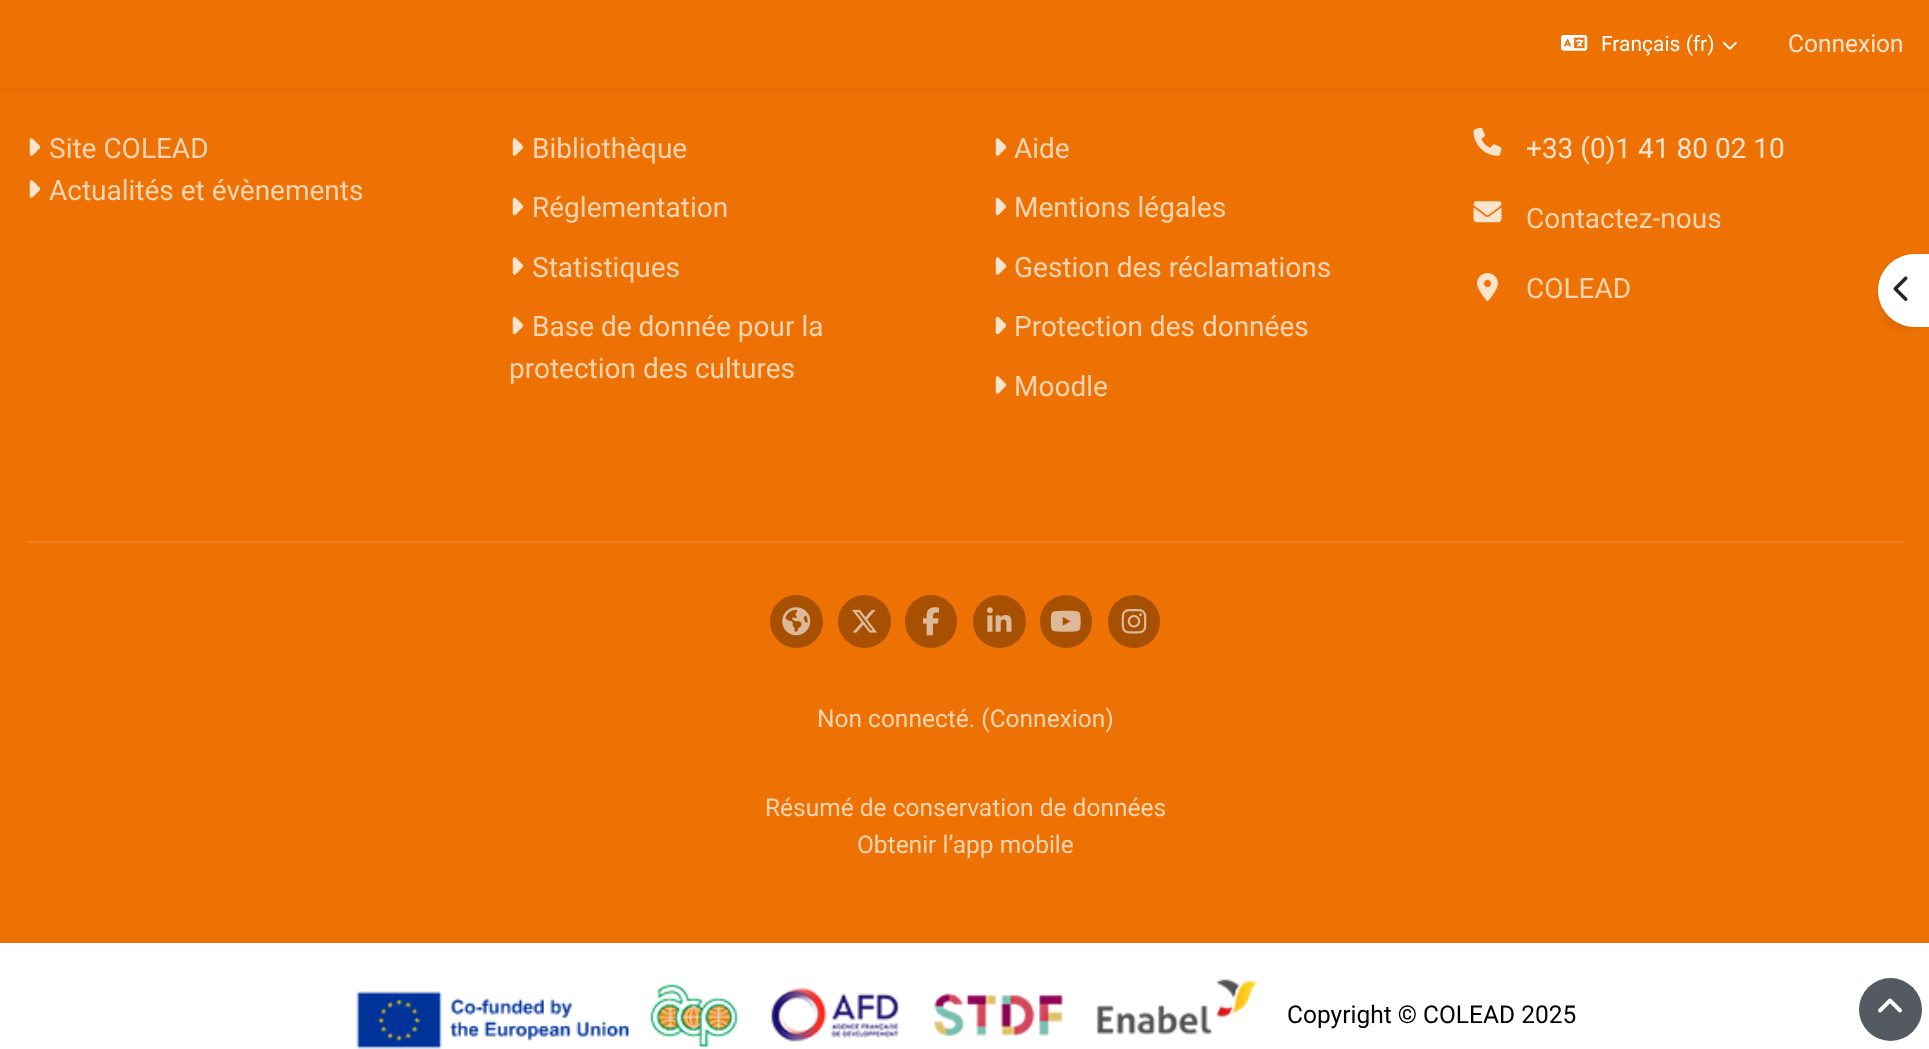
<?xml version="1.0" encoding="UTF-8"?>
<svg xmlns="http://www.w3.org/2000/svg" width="1929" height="1049">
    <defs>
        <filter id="blur1" x="-50%" y="-200%" width="200%" height="500%"><feGaussianBlur stdDeviation="3.5"/></filter>
    </defs>
    <rect width="100%" height="100%" fill="#EE7203"/>
    <rect x="0" y="2" width="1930" height="87" fill="#000000" fill-opacity="0.1" filter="url(#blur1)"/>
    <rect x="0" y="0" width="1929" height="88" fill="#EE7203"/>
    <image x="1561" y="35" width="27" height="16" href="img_01.png"/>
    <text x="1601" y="51" font-family="Roboto" font-size="21" fill="#FFFFFF">Français (fr)</text>
    <image x="1723" y="41" width="14" height="9" href="img_02.png"/>
    <text x="1788" y="52" font-family="Roboto" font-size="24.5" fill="#FCE3CD">Connexion</text>
    <image x="29" y="138" width="12" height="18" href="img_03.png"/>
    <text x="49" y="158" font-family="Roboto" font-size="28" fill="#FAD5B3">Site COLEAD</text>
    <image x="29" y="180" width="12" height="18" href="img_03.png"/>
    <text x="49" y="200" font-family="Roboto" font-size="28" fill="#FAD5B3">Actualités et évènements</text>
    <image x="512" y="138" width="12" height="18" href="img_03.png"/>
    <text x="532" y="158" font-family="Roboto" font-size="28" fill="#FAD5B3">Bibliothèque</text>
    <image x="512" y="197" width="12" height="19" href="img_04.png"/>
    <text x="532" y="217" font-family="Roboto" font-size="28" fill="#FAD5B3">Réglementation</text>
    <image x="512" y="257" width="12" height="18" href="img_03.png"/>
    <text x="532" y="277" font-family="Roboto" font-size="28" fill="#FAD5B3">Statistiques</text>
    <image x="512" y="316" width="12" height="19" href="img_04.png"/>
    <text x="532" y="336" font-family="Roboto" font-size="28" fill="#FAD5B3">Base de donnée pour la</text>
    <text x="509" y="378" font-family="Roboto" font-size="28" fill="#FAD5B3">protection des cultures</text>
    <image x="995" y="138" width="12" height="18" href="img_03.png"/>
    <text x="1014" y="158" font-family="Roboto" font-size="28" fill="#FAD5B3">Aide</text>
    <image x="995" y="197" width="12" height="19" href="img_04.png"/>
    <text x="1014" y="217" font-family="Roboto" font-size="28" fill="#FAD5B3">Mentions légales</text>
    <image x="995" y="257" width="12" height="18" href="img_03.png"/>
    <text x="1014" y="277" font-family="Roboto" font-size="28" fill="#FAD5B3">Gestion des réclamations</text>
    <image x="995" y="316" width="12" height="19" href="img_04.png"/>
    <text x="1014" y="336" font-family="Roboto" font-size="28" fill="#FAD5B3">Protection des données</text>
    <image x="995" y="376" width="12" height="18" href="img_03.png"/>
    <text x="1014" y="396" font-family="Roboto" font-size="28" fill="#FAD5B3">Moodle</text>
    <image x="1473" y="127" width="29" height="29" href="img_05.png"/>
    <text x="1526" y="158" font-family="Roboto" font-size="28" fill="#FCE3CD">+33 (0)1 41 80 02 10</text>
    <image x="1473" y="201" width="29" height="22" href="img_06.png"/>
    <text x="1526" y="228" font-family="Roboto" font-size="28" fill="#FAD5B3">Contactez-nous</text>
    <image x="1477" y="273" width="21" height="28" href="img_07.png"/>
    <text x="1526" y="298" font-family="Roboto" font-size="28" fill="#FAD5B3">COLEAD</text>
    <rect x="26" y="541" width="1878" height="2" fill="#F0801C"/>
    <circle cx="796.5" cy="621.5" r="26.5" fill="#A75002"/>
    <image x="782" y="607" width="29" height="29" href="img_08.png"/>
    <circle cx="864.5" cy="621.5" r="26.5" fill="#A75002"/>
    <image x="852" y="609" width="25" height="24" href="img_09.png"/>
    <rect x="905" y="595" width="52" height="53" rx="26" fill="#A75002"/>
    <image x="923" y="607" width="16" height="29" href="img_10.png"/>
    <circle cx="999.5" cy="621.5" r="26.5" fill="#A75002"/>
    <image x="987" y="607" width="25" height="25" href="img_11.png"/>
    <rect x="1040" y="595" width="52" height="53" rx="26" fill="#A75002"/>
    <image x="1050" y="610" width="31" height="22" href="img_12.png"/>
    <rect x="1108" y="595" width="52" height="53" rx="26" fill="#A75002"/>
    <image x="1121" y="609" width="26" height="25" href="img_13.png"/>
    <text x="817" y="727" font-family="Roboto" font-size="24.5" fill="#FAD5B3">Non connecté. (Connexion)</text>
    <text x="765" y="816" font-family="Roboto" font-size="24.5" fill="#FAD5B3">Résumé de conservation de données</text>
    <text x="857" y="853" font-family="Roboto" font-size="24.5" fill="#FAD5B3">Obtenir l’app mobile</text>
    <rect x="0" y="943" width="1929" height="106" fill="#FFFFFF"/>
    <image x="356" y="991" width="273" height="58" href="img_14.png"/>
    <image x="650" y="984" width="88" height="63" href="img_15.png"/>
    <image x="771" y="988" width="128" height="54" href="img_16.png"/>
    <image x="934" y="993" width="129" height="44" href="img_17.png"/>
    <image x="1096" y="979" width="161" height="56" href="img_18.png"/>
    <text x="1287" y="1023" font-family="Roboto" font-size="24.5" fill="#000000">Copyright © COLEAD 2025</text>
    <rect x="1878" y="257" width="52" height="74" rx="37" fill="#000000" fill-opacity="0.07" filter="url(#blur1)"/>
    <path d="M 1914.5 254 H 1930 V 327 H 1914.5 C 1894.5 327 1878 310.5 1878 290.5 C 1878 270.5 1894.5 254 1914.5 254 Z" fill="#FFFFFF"/>
    <image x="1893" y="276" width="15" height="25" href="img_19.png"/>
    <circle cx="1890.5" cy="1009.5" r="31.5" fill="#555961"/>
    <image x="1878" y="998" width="24" height="15" href="img_20.png"/>
</svg>
